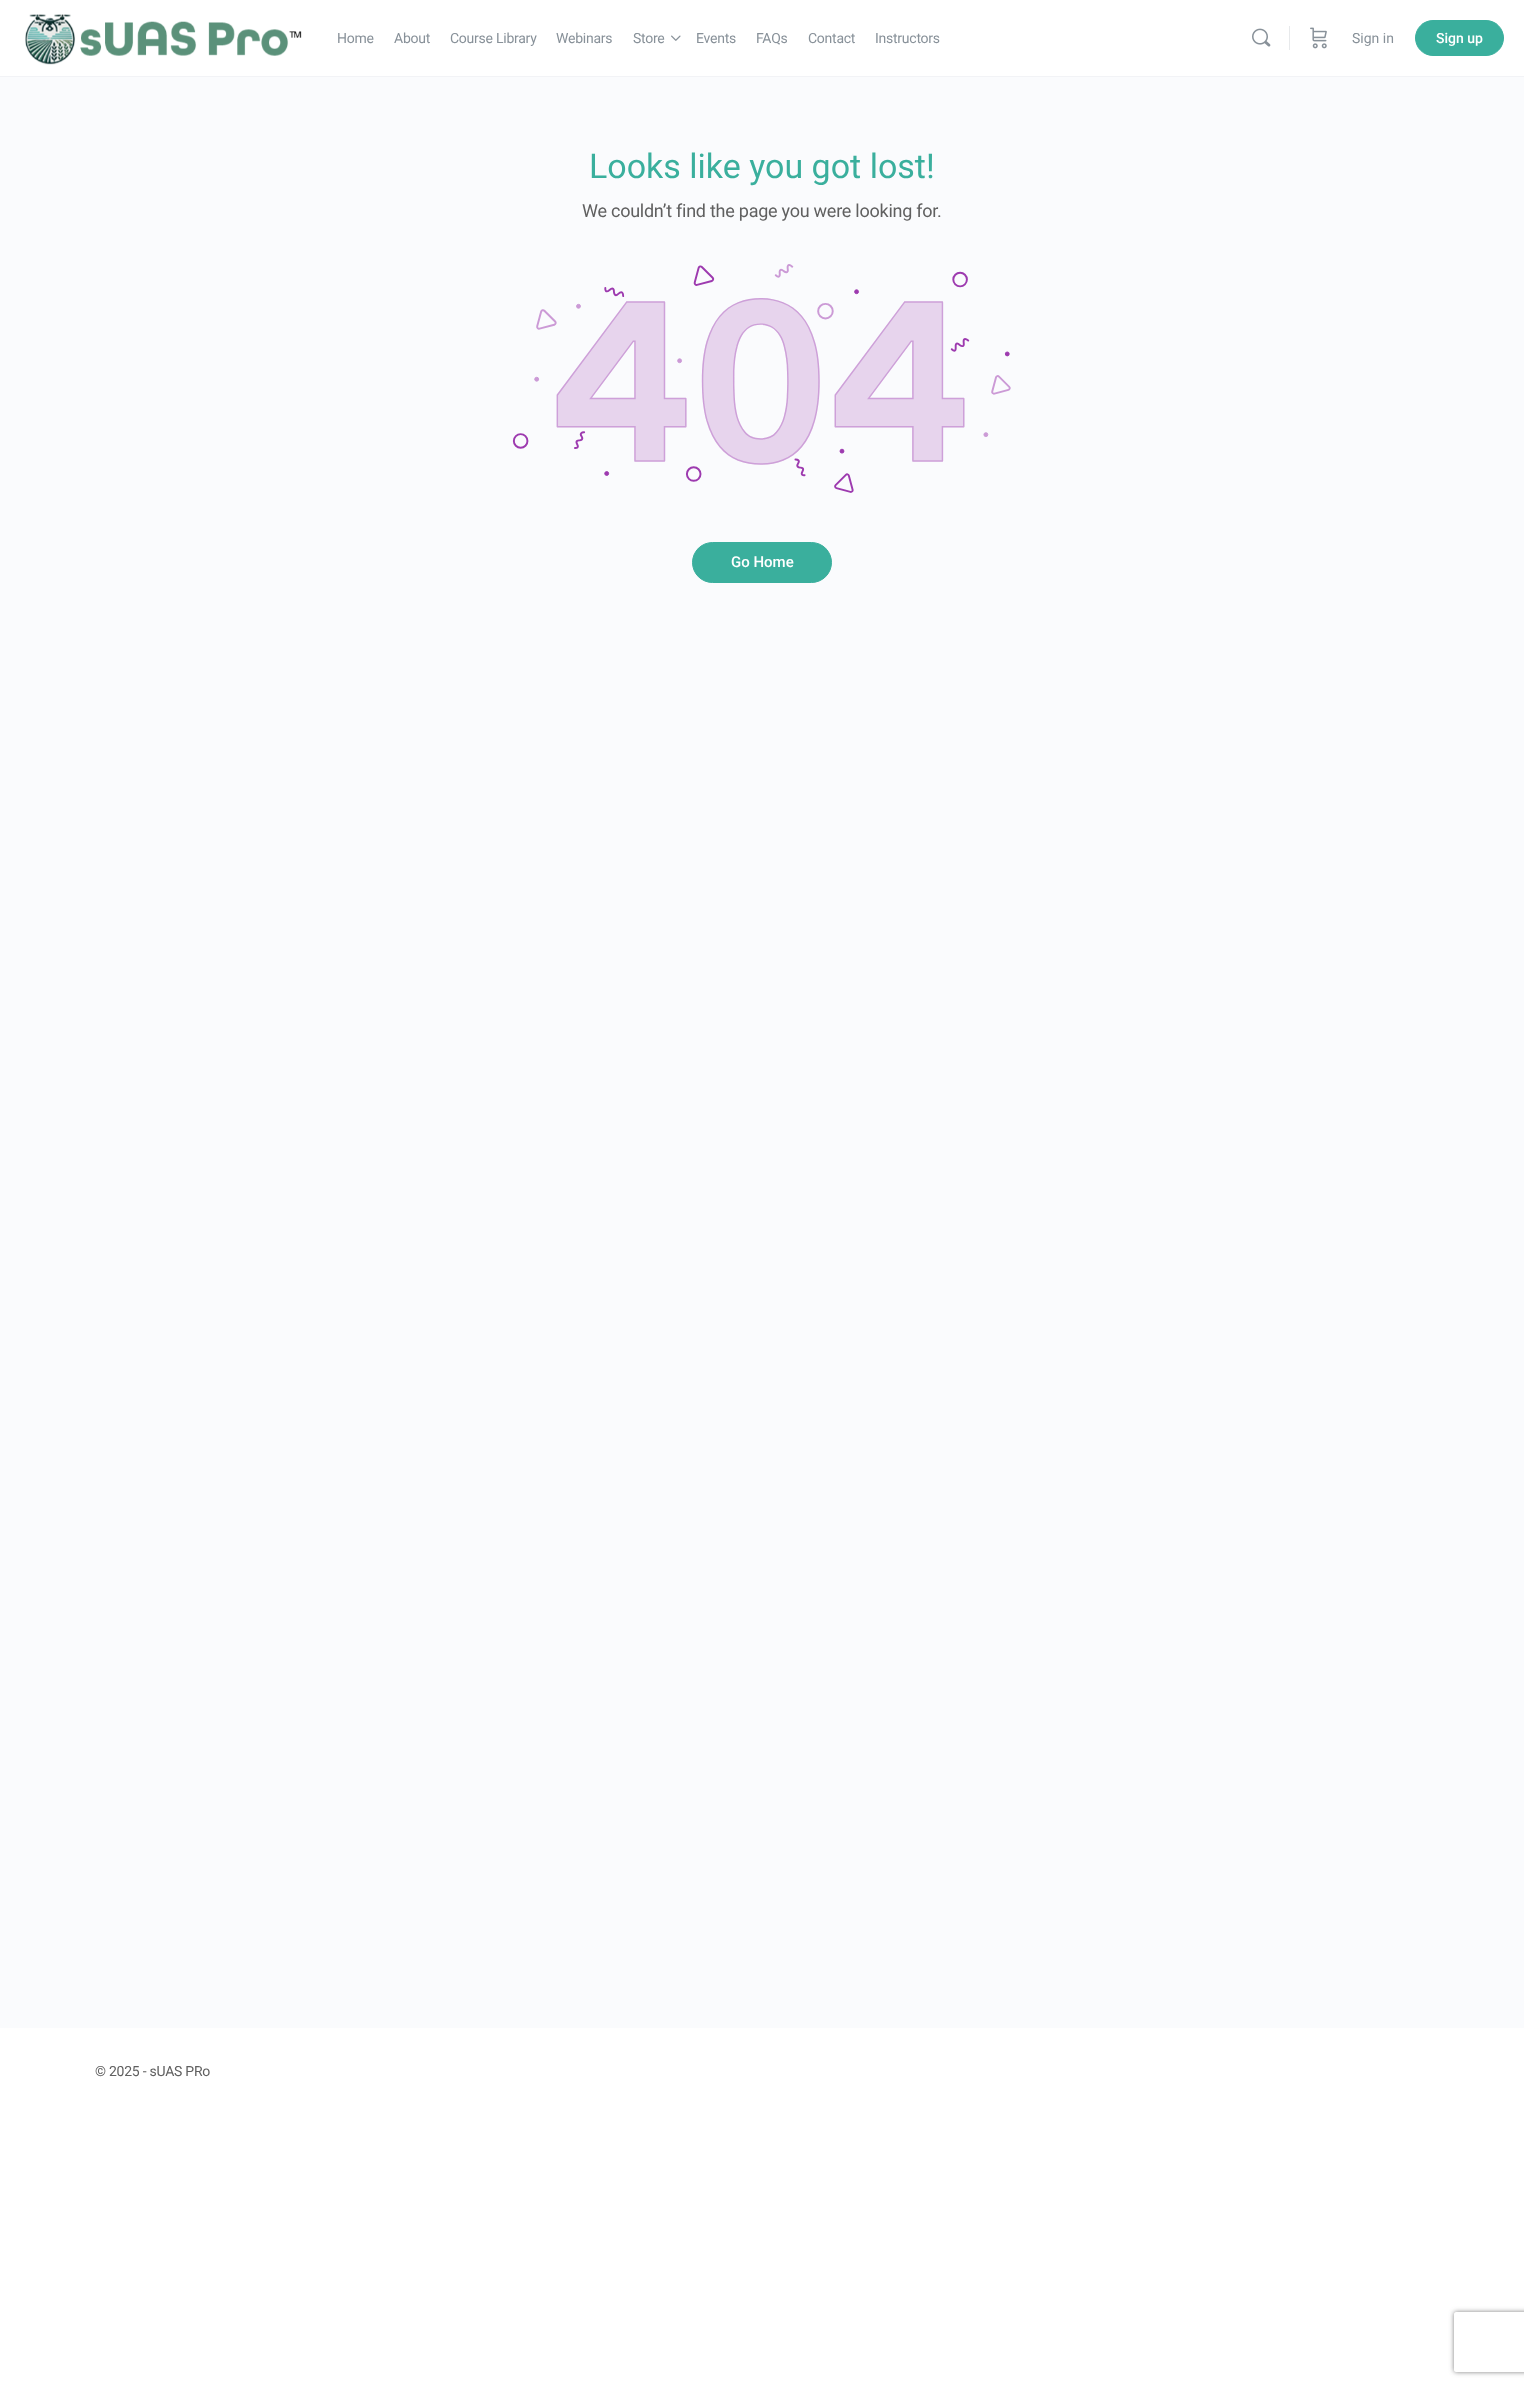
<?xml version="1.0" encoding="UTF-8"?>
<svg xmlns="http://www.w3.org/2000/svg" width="1524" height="2386">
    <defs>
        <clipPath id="clip1"><path d="M 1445 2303 H 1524 V 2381 H 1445 Z M 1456 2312 H 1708 C 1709 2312 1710 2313 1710 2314 V 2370 C 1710 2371 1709 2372 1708 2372 H 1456 C 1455 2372 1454 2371 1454 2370 V 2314 C 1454 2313 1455 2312 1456 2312 Z" clip-rule="evenodd"/></clipPath>
        <filter id="blur1" x="-50%" y="-200%" width="200%" height="500%"><feGaussianBlur stdDeviation="2.5"/></filter>
    </defs>
    <rect width="100%" height="100%" fill="#FAFBFD"/>
    <rect x="0" y="76" width="1524" height="1" fill="#F2F3F6"/>
    <rect x="0" y="0" width="1524" height="76" fill="#FFFFFF"/>
    <image x="25" y="14" width="277" height="51" href="img_01.png"/>
    <text x="337" y="43" font-family="Roboto" font-size="14" letter-spacing="-0.25" fill="#889199">Home</text>
    <text x="394" y="43" font-family="Roboto" font-size="14" letter-spacing="-0.25" fill="#889199">About</text>
    <text x="450" y="43" font-family="Roboto" font-size="14" letter-spacing="-0.25" fill="#889199">Course Library</text>
    <text x="556" y="43" font-family="Roboto" font-size="14" letter-spacing="-0.25" fill="#889199">Webinars</text>
    <text x="633" y="43" font-family="Roboto" font-size="14" letter-spacing="-0.25" fill="#889199">Store</text>
    <image x="671" y="35" width="10" height="6" href="img_02.png"/>
    <text x="696" y="43" font-family="Roboto" font-size="14" letter-spacing="-0.25" fill="#889199">Events</text>
    <text x="756" y="43" font-family="Roboto" font-size="14" letter-spacing="-0.25" fill="#889199">FAQs</text>
    <text x="808" y="43" font-family="Roboto" font-size="14" letter-spacing="-0.25" fill="#889199">Contact</text>
    <text x="875" y="43" font-family="Roboto" font-size="14" letter-spacing="-0.25" fill="#889199">Instructors</text>
    <image x="1252" y="28" width="19" height="19" href="img_03.png"/>
    <rect x="1289" y="26" width="1" height="24" fill="#E7E9EB"/>
    <image x="1310" y="27" width="17" height="22" href="img_04.png"/>
    <text x="1352" y="43" font-family="Roboto" font-size="14" fill="#889199">Sign in</text>
    <rect x="1415.5" y="20.5" width="88" height="35" rx="17.5" fill="#3AAF9D" stroke="#3AAF9D"/>
    <text x="1436" y="43" font-family="Roboto" font-size="14" font-weight="500" fill="#FFFFFF">Sign up</text>
    <text x="589" y="178" font-family="Roboto" font-size="34" fill="#3AAF9D">Looks like you got lost!</text>
    <text x="582" y="217" font-family="Roboto" font-size="18" letter-spacing="-0.25" fill="#606060">We couldn’t find the page you were looking for.</text>
    <image x="512" y="264" width="499" height="229" href="img_05.png"/>
    <rect x="692.5" y="542.5" width="139" height="40" rx="20" fill="#3AAF9D" stroke="#3AAF9D"/>
    <text x="731" y="567" font-family="Roboto" font-size="15" font-weight="500" fill="#FFFFFF">Go Home</text>
    <rect x="0" y="2028" width="1524" height="358" fill="#FFFFFF"/>
    <text x="95" y="2076" font-family="Roboto" font-size="14" letter-spacing="-0.25" fill="#606060">© 2025 - sUAS PRo</text>
    <g clip-path="url(#clip1)">
        <rect x="1454" y="2312" width="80" height="60" rx="2" fill="#808080" filter="url(#blur1)"/>
    </g>
</svg>
